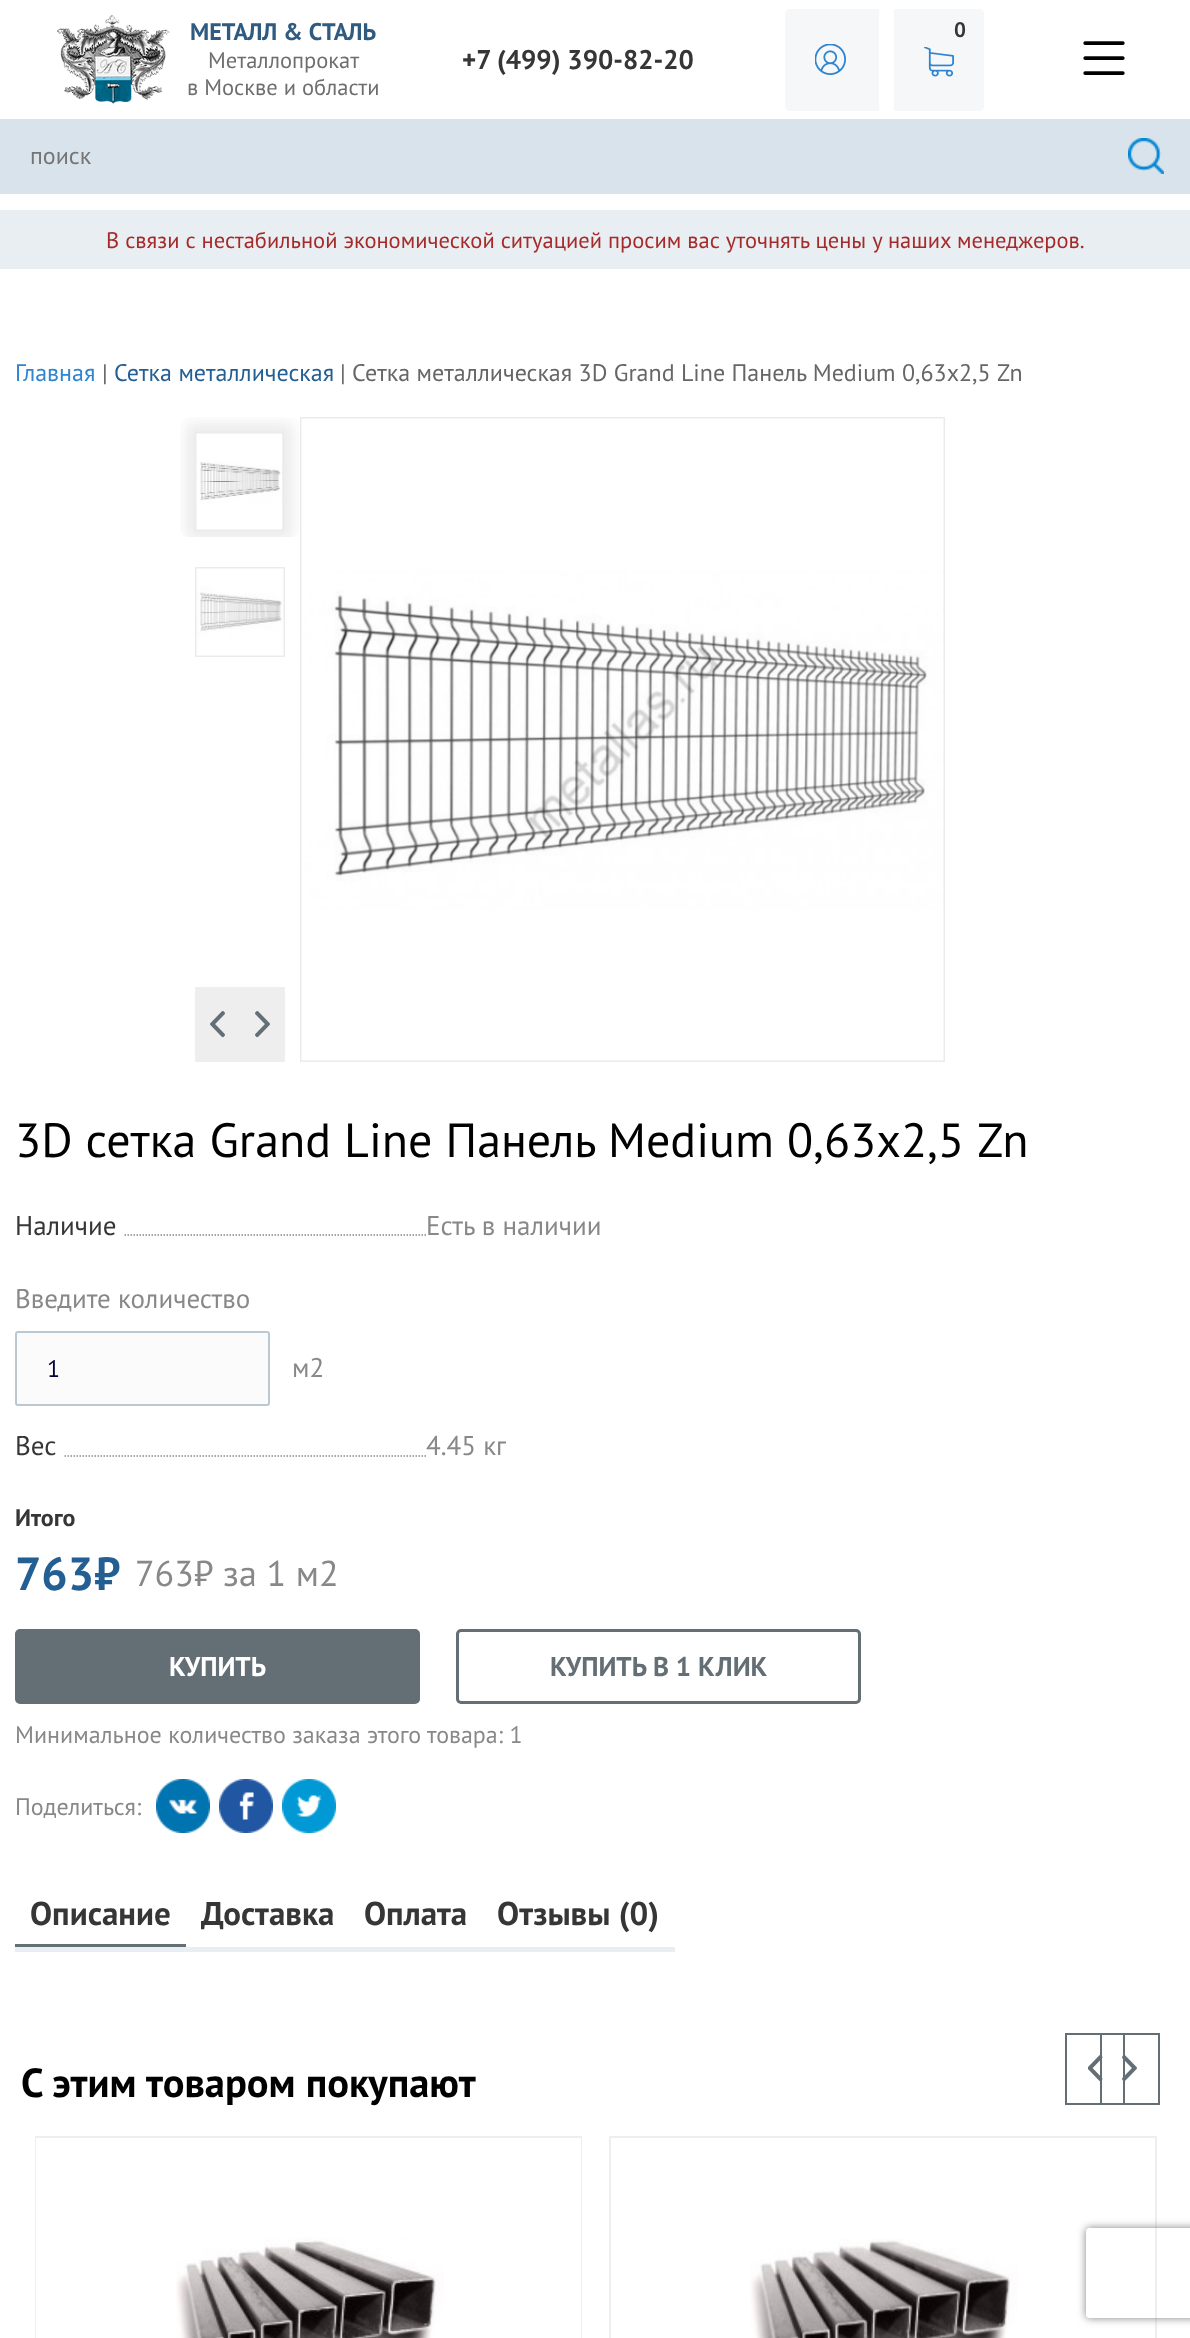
<?xml version="1.0" encoding="UTF-8"?>
<svg xmlns="http://www.w3.org/2000/svg" width="1190" height="2338">
    <defs>
        <clipPath id="clip1"><rect x="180" y="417" width="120" height="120" rx="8"/></clipPath>
        <clipPath id="clip2"><path d="M 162 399 H 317 V 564 H 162 Z M 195 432 H 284 V 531 H 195 Z" clip-rule="evenodd"/></clipPath>
        <filter id="blur1" x="-50%" y="-200%" width="200%" height="500%"><feGaussianBlur stdDeviation="7.5"/></filter>
        <clipPath id="clip3"><path d="M 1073 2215 H 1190 V 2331 H 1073 Z M 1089 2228 H 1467 C 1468.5 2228 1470 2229.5 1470 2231 V 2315 C 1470 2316.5 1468.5 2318 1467 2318 H 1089 C 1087.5 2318 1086 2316.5 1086 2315 V 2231 C 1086 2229.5 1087.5 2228 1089 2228 Z" clip-rule="evenodd"/></clipPath>
        <filter id="blur2" x="-50%" y="-200%" width="200%" height="500%"><feGaussianBlur stdDeviation="4"/></filter>
    </defs>
    <rect width="100%" height="100%" fill="#FFFFFF"/>
    <image x="57" y="15" width="113" height="89" href="img_01.png"/>
    <text x="190" y="40" font-family="PT Sans" font-size="24" font-weight="700" fill="#305B80">МЕТАЛЛ &amp; СТАЛЬ</text>
    <text x="208" y="68" font-family="PT Sans" font-size="22.5" fill="#6E6E6E">Металлопрокат</text>
    <text x="187" y="95" font-family="PT Sans" font-size="22.5" fill="#6E6E6E">в Москве и области</text>
    <path d="M 790 9 H 879 V 111 H 790 C 787 111 785 109 785 106 V 14 C 785 11 787 9 790 9 Z" fill="#F5F7F9"/>
    <image x="815" y="44" width="31" height="31" href="img_02.png"/>
    <path d="M 894 9 H 979 C 982 9 984 11 984 14 V 106 C 984 109 982 111 979 111 H 894 Z" fill="#F5F7F9"/>
    <text x="954" y="37" font-family="PT Sans" font-size="21" font-weight="700" fill="#363636">0</text>
    <image x="924" y="47" width="30" height="30" href="img_03.png"/>
    <text x="462" y="69" font-family="PT Sans" font-size="27" font-weight="700" fill="#363636">+7 (499) 390-82-20</text>
    <image x="1083" y="41" width="42" height="34" href="img_04.png"/>
    <rect x="0" y="119" width="1190" height="75" fill="#D9E3EB"/>
    <text x="30" y="164" font-family="PT Sans" font-size="24" fill="#757575">поиск</text>
    <image x="1128" y="138" width="36" height="36" href="img_05.png"/>
    <rect x="0" y="210" width="1190" height="59" fill="#E9EEF2"/>
    <text x="106" y="248" font-family="PT Sans" font-size="22.5" fill="#A52A2A">В связи с нестабильной экономической ситуацией просим вас уточнять цены у наших менеджеров.</text>
    <text x="15" y="381" font-family="PT Sans" font-size="24" fill="#2F85CF">Главная</text>
    <text x="102" y="381" font-family="PT Sans" font-size="24" fill="#666666">|</text>
    <text x="114" y="381" font-family="PT Sans" font-size="24" fill="#235F93">Сетка металлическая</text>
    <text x="340" y="381" font-family="PT Sans" font-size="24" fill="#666666">| Сетка металлическая 3D Grand Line Панель Medium 0,63х2,5 Zn</text>
    <rect x="301" y="418" width="643" height="643" fill="none" stroke="#EBEBEB" stroke-width="2"/>
    <image x="301" y="418" width="643" height="643" href="img_10.png"/>
    <g clip-path="url(#clip1)">
        <g clip-path="url(#clip2)">
            <rect x="186" y="423" width="107" height="117" fill="#000000" fill-opacity="0.08" filter="url(#blur1)"/>
        </g>
    </g>
    <rect x="196" y="433" width="87" height="97" fill="none" stroke="#000000" stroke-opacity="0.08" stroke-width="2"/>
    <image x="196" y="433" width="87" height="97" href="img_06.png"/>
    <rect x="196" y="568" width="88" height="88" fill="none" stroke="#EBEBEB" stroke-width="2"/>
    <image x="196" y="568" width="88" height="88" href="img_07.png"/>
    <rect x="195" y="987" width="90" height="75" fill="#EEEEEE"/>
    <image x="210" y="1011" width="15" height="27" href="img_08.png"/>
    <image x="255" y="1011" width="15" height="27" href="img_09.png"/>
    <text x="15" y="1157" word-spacing="0.25" font-family="PT Sans" font-size="48" fill="#000000">3D сетка Grand Line Панель Medium 0,63х2,5 Zn</text>
    <text x="15" y="1235" font-family="PT Sans" font-size="27" fill="#363636">Наличие</text>
    <path d="M 124.5 1235 H 426" fill="none" stroke="#888888" stroke-width="1.5" stroke-dasharray="1.5 1.5"/>
    <text x="426" y="1235" font-family="PT Sans" font-size="27" fill="#888888">Есть в наличии</text>
    <text x="15" y="1308" font-family="PT Sans" font-size="27" fill="#888888">Введите количество</text>
    <rect x="16" y="1332" width="253" height="73" rx="2" fill="#FBFBFB" stroke="#BBC8D2" stroke-width="2"/>
    <text x="47" y="1377" font-family="PT Sans" font-size="24" fill="#000333">1</text>
    <text x="292" y="1377" font-family="PT Sans" font-size="27" fill="#888888">м2</text>
    <text x="15" y="1455" font-family="PT Sans" font-size="27" fill="#363636">Вес</text>
    <path d="M 64.5 1456 H 426" fill="none" stroke="#888888" stroke-width="1.5" stroke-dasharray="1.5 1.5"/>
    <text x="426" y="1455" font-family="PT Sans" font-size="27" fill="#888888">4.45 кг</text>
    <text x="15" y="1526" font-family="PT Sans" font-size="24" font-weight="700" fill="#363636">Итого</text>
    <text x="15" y="1590" font-family="PT Sans" font-size="46.5" font-weight="700" fill="#235F93">763₽</text>
    <text x="135" y="1586" font-family="PT Sans" font-size="36" fill="#888888">763₽ за 1 м2</text>
    <rect x="16.5" y="1630.5" width="402" height="72" rx="3.5" fill="#636E75" stroke="#636E75" stroke-width="3"/>
    <text x="169" y="1676" font-family="PT Sans" font-size="27" font-weight="700" fill="#FFFFFF">КУПИТЬ</text>
    <rect x="457.5" y="1630.5" width="402" height="72" rx="3.5" fill="none" stroke="#636E75" stroke-width="3"/>
    <text x="550" y="1676" font-family="PT Sans" font-size="27" font-weight="700" fill="#636E75">КУПИТЬ В 1 КЛИК</text>
    <text x="15" y="1743" font-family="PT Sans" font-size="24" fill="#888888">Минимальное количество заказа этого товара: 1</text>
    <text x="15" y="1815" font-family="PT Sans" font-size="24" fill="#888888">Поделиться:</text>
    <image x="156" y="1779" width="54" height="54" href="img_11.png"/>
    <image x="219" y="1779" width="54" height="54" href="img_12.png"/>
    <image x="282" y="1779" width="54" height="54" href="img_13.png"/>
    <rect x="15" y="1947" width="660" height="5" fill="#E9EEF2"/>
    <rect x="15" y="1944" width="171" height="3" fill="#636E75"/>
    <text x="30" y="1925" font-family="PT Sans" font-size="33" font-weight="700" fill="#363636">Описание</text>
    <text x="201" y="1925" font-family="PT Sans" font-size="33" font-weight="700" fill="#363636">Доставка</text>
    <text x="364" y="1925" font-family="PT Sans" font-size="33" font-weight="700" fill="#363636">Оплата</text>
    <text x="497" y="1925" font-family="PT Sans" font-size="33" font-weight="700" fill="#363636">Отзывы (0)</text>
    <image x="1088" y="2055" width="15" height="27" href="img_14.png"/>
    <rect x="1066" y="2034" width="58" height="70" fill="none" stroke="#636E75" stroke-width="2"/>
    <image x="1122" y="2055" width="15" height="26" href="img_15.png"/>
    <rect x="1101" y="2034" width="58" height="70" fill="none" stroke="#636E75" stroke-width="2"/>
    <rect x="36" y="2137" width="545" height="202" fill="none" stroke="#EEEEEE" stroke-width="2"/>
    <rect x="36" y="2138" width="545" height="200" fill="#FFFFFF"/>
    <image x="176" y="2237" width="268" height="101" href="img_16.png"/>
    <rect x="610" y="2137" width="546" height="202" fill="none" stroke="#EEEEEE" stroke-width="2"/>
    <image x="750" y="2239" width="268" height="99" href="img_17.png"/>
    <text x="21" y="2097" font-family="PT Sans" font-size="40.5" font-weight="700" fill="#000000">С этим товаром покупают</text>
    <g clip-path="url(#clip3)">
        <rect x="1086" y="2228" width="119" height="90" rx="3" fill="#808080" filter="url(#blur2)"/>
    </g>
</svg>
